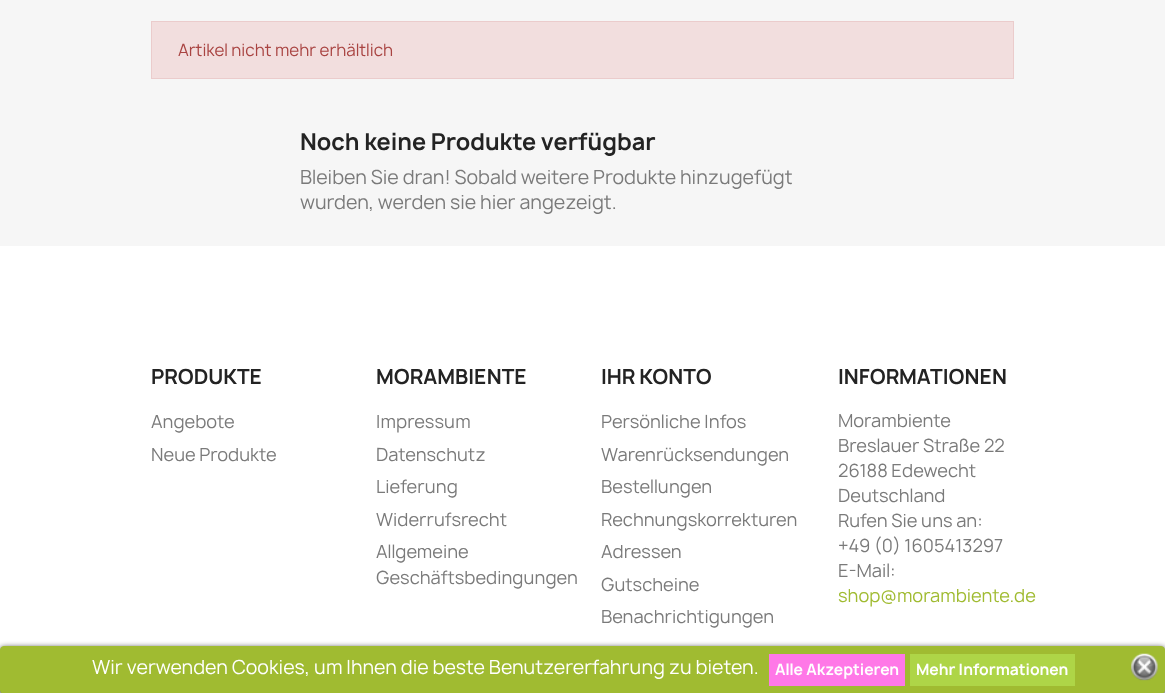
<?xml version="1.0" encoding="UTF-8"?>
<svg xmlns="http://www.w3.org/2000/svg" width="1165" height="693">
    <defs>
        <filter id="blur1" x="-50%" y="-200%" width="200%" height="500%"><feGaussianBlur stdDeviation="3"/></filter>
    </defs>
    <rect width="100%" height="100%" fill="#FFFFFF"/>
    <rect x="0" y="0" width="1165" height="246" fill="#F6F6F6"/>
    <rect x="151.5" y="21.5" width="862" height="57" fill="#F2DEDE" stroke="#EBCCCC"/>
    <text x="178" y="56" font-family="Manrope" font-size="16.25" fill="#A94442">Artikel nicht mehr erhältlich</text>
    <text x="300" y="150" font-family="Manrope" font-size="22.5" font-weight="700" fill="#232323">Noch keine Produkte verfügbar</text>
    <text font-family="Manrope" font-size="18.75" fill="#7A7A7A">
        <tspan x="300" y="184">Bleiben Sie dran! Sobald weitere Produkte hinzugefügt</tspan>
        <tspan x="300" y="209">wurden, werden sie hier angezeigt.</tspan>
    </text>
    <text x="151" y="384" font-family="Manrope" font-size="20" font-weight="700" fill="#232323">PRODUKTE</text>
    <text font-family="Manrope" font-size="17.5" fill="#7A7A7A">
        <tspan x="151" y="428">Angebote</tspan>
        <tspan x="151" y="461">Neue Produkte</tspan>
    </text>
    <text x="376" y="384" font-family="Manrope" font-size="20" font-weight="700" fill="#232323">MORAMBIENTE</text>
    <text font-family="Manrope" font-size="17.5" fill="#7A7A7A">
        <tspan x="376" y="428">Impressum</tspan>
        <tspan x="376" y="461">Datenschutz</tspan>
        <tspan x="376" y="493">Lieferung</tspan>
        <tspan x="376" y="526">Widerrufsrecht</tspan>
        <tspan x="376" y="558">Allgemeine</tspan>
        <tspan x="376" y="584">Geschäftsbedingungen</tspan>
    </text>
    <text x="601" y="384" font-family="Manrope" font-size="20" font-weight="700" fill="#232323">IHR KONTO</text>
    <text font-family="Manrope" font-size="17.5" fill="#7A7A7A">
        <tspan x="601" y="428">Persönliche Infos</tspan>
        <tspan x="601" y="461">Warenrücksendungen</tspan>
        <tspan x="601" y="493">Bestellungen</tspan>
        <tspan x="601" y="526">Rechnungskorrekturen</tspan>
        <tspan x="601" y="558">Adressen</tspan>
        <tspan x="601" y="591">Gutscheine</tspan>
        <tspan x="601" y="623">Benachrichtigungen</tspan>
    </text>
    <text x="838" y="384" font-family="Manrope" font-size="20" font-weight="700" fill="#232323">INFORMATIONEN</text>
    <text font-family="Manrope" font-size="17.5" fill="#7A7A7A">
        <tspan x="838" y="427">Morambiente</tspan>
        <tspan x="838" y="452">Breslauer Straße 22</tspan>
        <tspan x="838" y="477">26188 Edewecht</tspan>
        <tspan x="838" y="502">Deutschland</tspan>
        <tspan x="838" y="527">Rufen Sie uns an:</tspan>
        <tspan x="838" y="552">+49 (0) 1605413297</tspan>
        <tspan x="838" y="577">E-Mail:</tspan>
    </text>
    <text x="838" y="602" font-family="Manrope" font-size="17.5" fill="#A0BB31">shop@morambiente.de</text>
    <rect x="0" y="648" width="1165" height="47" rx="4" fill="#000000" filter="url(#blur1)"/>
    <rect x="0.5" y="646.5" width="1164" height="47" rx="3.5" fill="#A0BB31" stroke="#A0BB31"/>
    <text x="92" y="674" font-family="Manrope" font-size="18.75" fill="#FFFFFF">Wir verwenden Cookies, um Ihnen die beste Benutzererfahrung zu bieten.</text>
    <rect x="769" y="654" width="136" height="32" fill="#FF78E7"/>
    <text x="775" y="675" font-family="Manrope" font-size="15" font-weight="700" fill="#FFFFFF">Alle Akzeptieren</text>
    <rect x="910" y="654" width="165" height="32" fill="#AED547"/>
    <text x="916" y="675" font-family="Manrope" font-size="15" font-weight="700" fill="#FFFFFF">Mehr Informationen</text>
    <image x="1131" y="653" width="27" height="28" href="img_01.png"/>
</svg>
